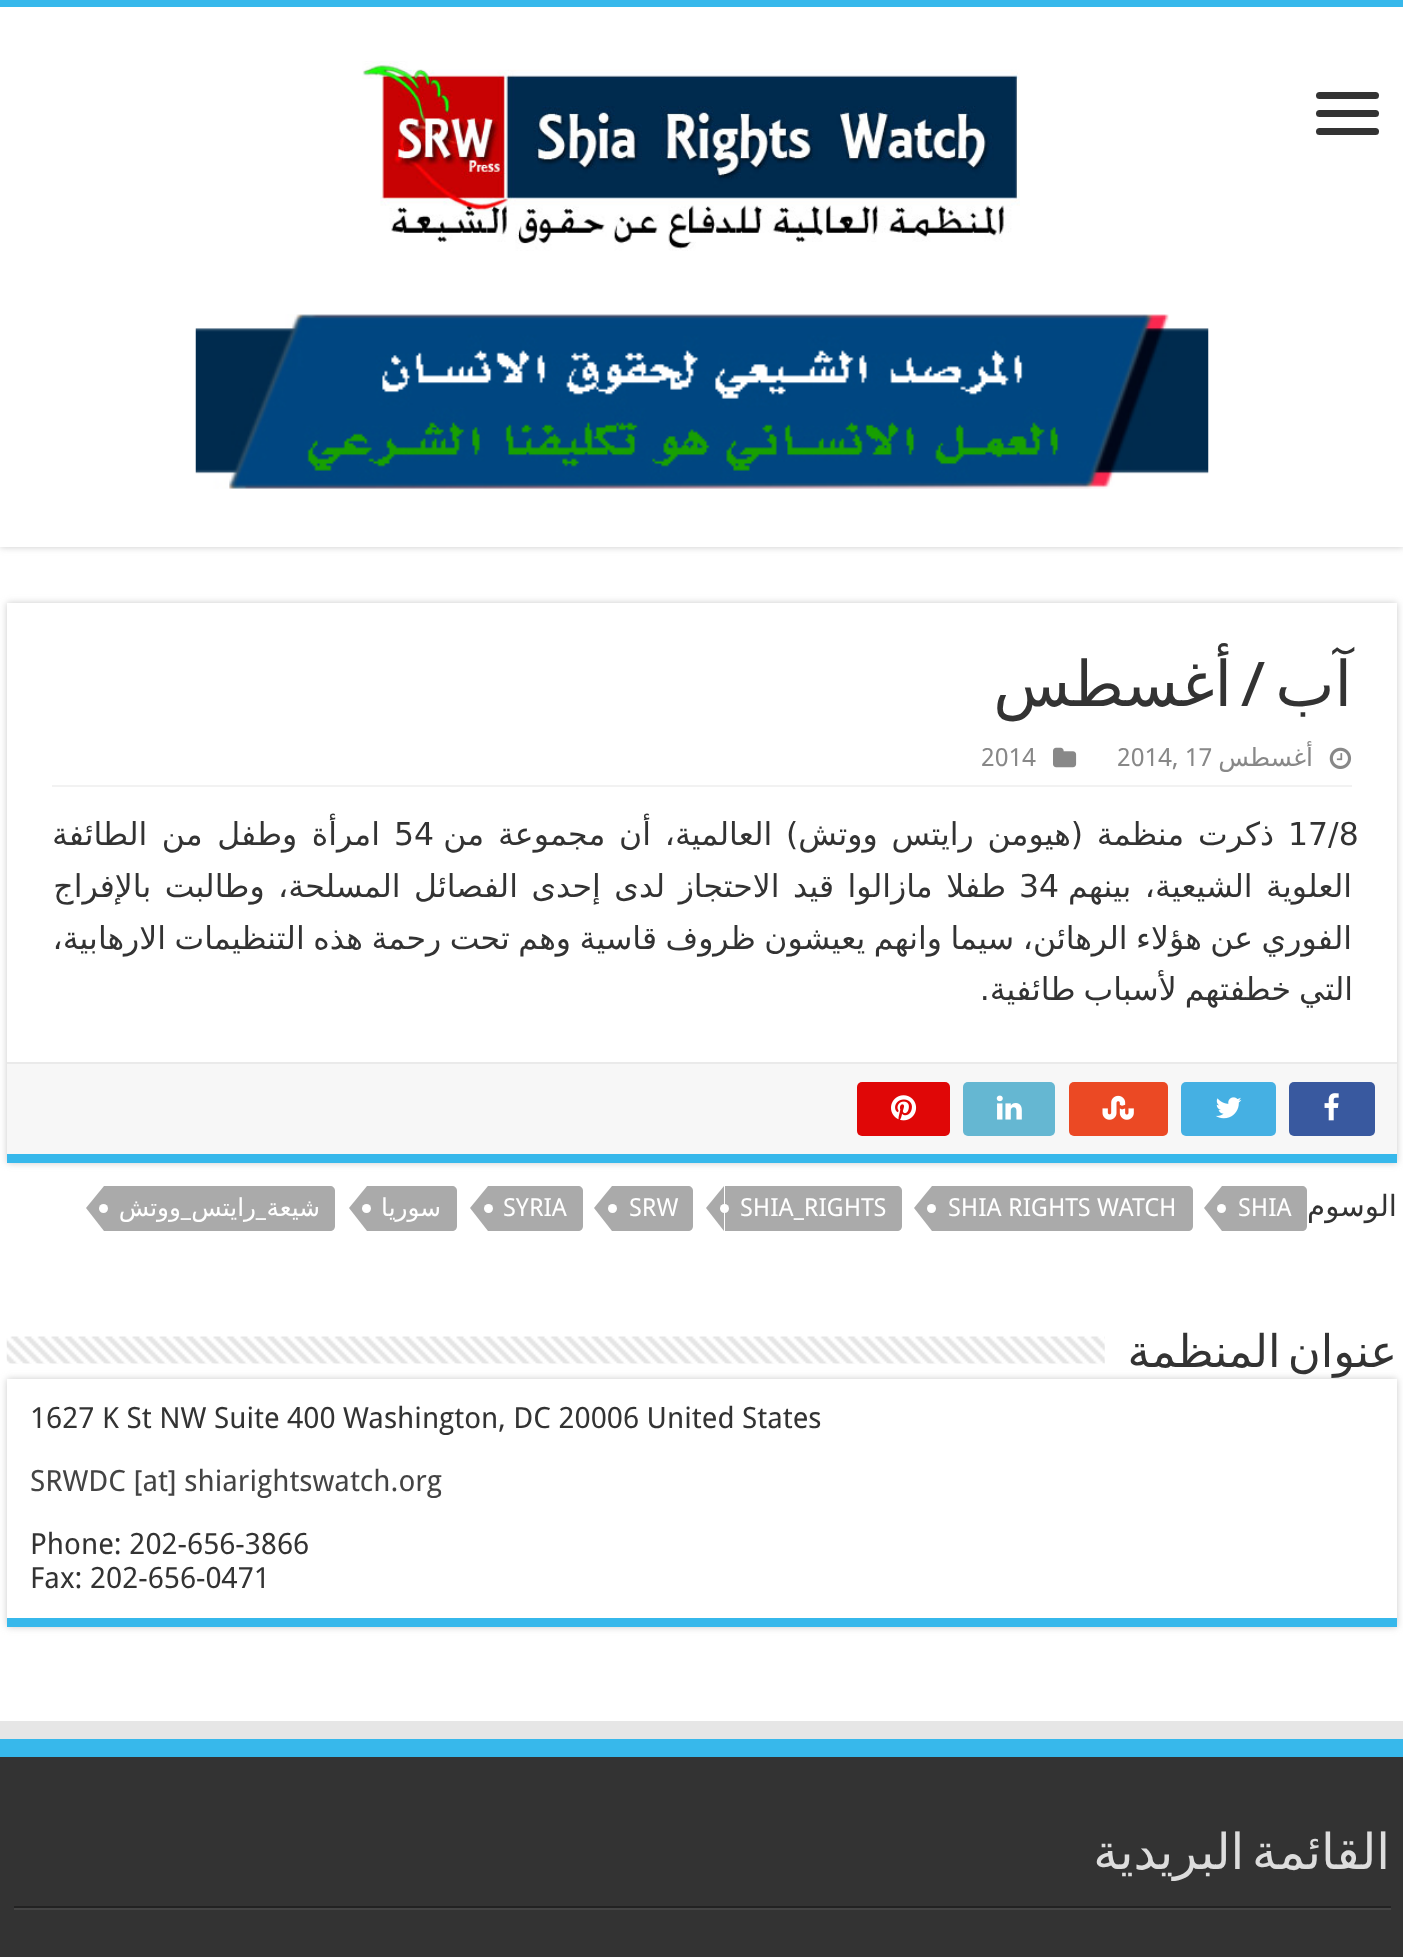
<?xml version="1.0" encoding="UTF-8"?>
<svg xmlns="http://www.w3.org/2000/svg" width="1403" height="1957">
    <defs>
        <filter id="blur1" x="-50%" y="-200%" width="200%" height="500%"><feGaussianBlur stdDeviation="3.5"/></filter>
        <clipPath id="clip1"><path d="M 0 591 H 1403 V 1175 H 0 Z M 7 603 H 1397 V 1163 H 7 Z" clip-rule="evenodd"/></clipPath>
    </defs>
    <rect width="100%" height="100%" fill="#FFFFFF"/>
    <rect x="0" y="0" width="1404" height="547" fill="#CACACA" filter="url(#blur1)"/>
    <rect x="0" y="7" width="1403" height="540" fill="#FFFFFF"/>
    <rect x="0" y="0" width="1403" height="7" fill="#37B8EB"/>
    <rect x="1316" y="92" width="63" height="7" rx="3.5" fill="#333333"/>
    <rect x="1316" y="110" width="63" height="7" rx="3.5" fill="#333333"/>
    <rect x="1316" y="128" width="63" height="7" rx="3.5" fill="#333333"/>
    <image x="362" y="61" width="658" height="190" href="img_01.png"/>
    <image x="195" y="314" width="1014" height="175" href="img_02.png"/>
    <g clip-path="url(#clip1)">
        <rect x="7" y="603" width="1390" height="560" fill="#CACACA" filter="url(#blur1)"/>
    </g>
    <rect x="7" y="1154" width="1390" height="9" fill="#37B8EB"/>
    <text x="1352" y="706" font-family="DejaVu Sans" font-size="63" direction="rtl" fill="#333333">آب</text>
    <text x="1265" y="706" font-family="Bebas Neue" font-size="63" font-weight="700" direction="rtl" fill="#333333">/</text>
    <text x="1232" y="706" font-family="DejaVu Sans" font-size="63" direction="rtl" fill="#333333">أغسطس</text>
    <rect x="52" y="785" width="1300" height="2" fill="#F2F2F2"/>
    <image x="1329" y="747" width="23" height="22" href="img_03.png"/>
    <text x="1313" y="766" font-family="DejaVu Sans" font-size="25" direction="rtl" fill="#888888">أغسطس</text>
    <text x="1117" y="766" font-family="Droid Sans" font-size="25" fill="#888888">2014, 17</text>
    <image x="1053" y="747" width="24" height="21" href="img_04.png"/>
    <text x="981" y="766" font-family="Droid Sans" font-size="25" fill="#888888">2014</text>
    <text x="1288" y="845" font-family="DejaVu Sans" font-size="31.5" fill="#333333">17/8</text>
    <text x="1274" y="845" word-spacing="3.75" font-family="DejaVu Sans" font-size="31.5" direction="rtl" fill="#333333">ذكرت منظمة (هيومن رايتس ووتش) العالمية، أن مجموعة من</text>
    <text x="394" y="845" font-family="DejaVu Sans" font-size="31.5" fill="#333333">54</text>
    <text x="380" y="845" word-spacing="4.5" font-family="DejaVu Sans" font-size="31.5" direction="rtl" fill="#333333">امرأة وطفل من الطائفة</text>
    <text x="1352" y="897" word-spacing="3.5" font-family="DejaVu Sans" font-size="31.5" direction="rtl" fill="#333333">العلوية الشيعية، بينهم</text>
    <text x="1019" y="897" font-family="DejaVu Sans" font-size="31.5" fill="#333333">34</text>
    <text x="1006" y="897" word-spacing="3.5" font-family="DejaVu Sans" font-size="31.5" direction="rtl" fill="#333333">طفلا مازالوا قيد الاحتجاز لدى إحدى الفصائل المسلحة، وطالبت بالإفراج</text>
    <text x="1352" y="949" word-spacing="-1.5" font-family="DejaVu Sans" font-size="31.5" direction="rtl" fill="#333333">الفوري عن هؤلاء الرهائن، سيما وانهم يعيشون ظروف قاسية وهم تحت رحمة هذه التنظيمات الارهابية،</text>
    <text x="1353" y="1000" word-spacing="-2" font-family="DejaVu Sans" font-size="31.5" direction="rtl" fill="#333333">التي خطفتهم لأسباب طائفية.</text>
    <rect x="7" y="1064" width="1390" height="90" fill="#F7F7F7"/>
    <rect x="7" y="1062" width="1390" height="2" fill="#EAEAEA"/>
    <rect x="1289" y="1082" width="86" height="54" rx="5" fill="#39599F"/>
    <image x="1324" y="1093" width="15" height="28" href="img_05.png"/>
    <rect x="1181" y="1082" width="95" height="54" rx="5" fill="#45B0E3"/>
    <image x="1215" y="1097" width="27" height="22" href="img_06.png"/>
    <rect x="1069" y="1082" width="99" height="54" rx="5" fill="#EB4924"/>
    <image x="1102" y="1095" width="32" height="25" href="img_07.png"/>
    <rect x="963" y="1082" width="92" height="54" rx="5" fill="#65B7D2"/>
    <image x="996" y="1095" width="26" height="25" href="img_08.png"/>
    <rect x="857" y="1082" width="93" height="54" rx="5" fill="#E00707"/>
    <image x="891" y="1095" width="26" height="26" href="img_09.png"/>
    <text x="1397" y="1216" font-family="DejaVu Sans" font-size="29.25" direction="rtl" fill="#333333">الوسوم</text>
    <path d="M 1222 1186 H 1302 C 1305 1186 1307 1188 1307 1191 V 1226 C 1307 1229 1305 1231 1302 1231 H 1222 Z" fill="#AAAAAA"/>
    <text x="1238" y="1216" font-family="Droid Sans" font-size="24.75" fill="#FFFFFF">SHIA</text>
    <path d="M 1222 1186 V 1231 L 1204 1208 Z" fill="#AAAAAA"/>
    <circle cx="1221.5" cy="1208.5" r="4.5" fill="#FFFFFF"/>
    <path d="M 932 1186 H 1188 C 1191 1186 1193 1188 1193 1191 V 1226 C 1193 1229 1191 1231 1188 1231 H 932 Z" fill="#AAAAAA"/>
    <text x="948" y="1216" font-family="Droid Sans" font-size="24.75" fill="#FFFFFF">SHIA RIGHTS WATCH</text>
    <path d="M 932 1186 V 1231 L 914 1208 Z" fill="#AAAAAA"/>
    <circle cx="931.5" cy="1208.5" r="4.5" fill="#FFFFFF"/>
    <path d="M 725 1186 H 897 C 900 1186 902 1188 902 1191 V 1226 C 902 1229 900 1231 897 1231 H 725 Z" fill="#AAAAAA"/>
    <text x="740" y="1216" font-family="Droid Sans" font-size="24.75" fill="#FFFFFF">SHIA_RIGHTS</text>
    <path d="M 724 1186 V 1231 L 706 1208 Z" fill="#AAAAAA"/>
    <circle cx="724.5" cy="1208.5" r="4.5" fill="#FFFFFF"/>
    <path d="M 612 1186 H 688 C 691 1186 693 1188 693 1191 V 1226 C 693 1229 691 1231 688 1231 H 612 Z" fill="#AAAAAA"/>
    <text x="629" y="1216" font-family="Droid Sans" font-size="24.75" fill="#FFFFFF">SRW</text>
    <path d="M 612 1186 V 1231 L 594 1208 Z" fill="#AAAAAA"/>
    <circle cx="612.5" cy="1208.5" r="4.5" fill="#FFFFFF"/>
    <path d="M 488 1186 H 578 C 581 1186 583 1188 583 1191 V 1226 C 583 1229 581 1231 578 1231 H 488 Z" fill="#AAAAAA"/>
    <text x="503" y="1216" font-family="Droid Sans" font-size="24.75" fill="#FFFFFF">SYRIA</text>
    <path d="M 488 1186 V 1231 L 470 1208 Z" fill="#AAAAAA"/>
    <circle cx="488.5" cy="1208.5" r="4.5" fill="#FFFFFF"/>
    <path d="M 367 1186 H 452 C 455 1186 457 1188 457 1191 V 1226 C 457 1229 455 1231 452 1231 H 367 Z" fill="#AAAAAA"/>
    <text x="441" y="1216" font-family="DejaVu Sans" font-size="24.75" direction="rtl" fill="#FFFFFF">سوريا</text>
    <path d="M 367 1186 V 1231 L 349 1208 Z" fill="#AAAAAA"/>
    <circle cx="366.5" cy="1208.5" r="4.5" fill="#FFFFFF"/>
    <path d="M 104 1186 H 330 C 333 1186 335 1188 335 1191 V 1226 C 335 1229 333 1231 330 1231 H 104 Z" fill="#AAAAAA"/>
    <text x="320" y="1216" font-family="DejaVu Sans" font-size="24.75" direction="rtl" fill="#FFFFFF">شيعة</text>
    <text x="256" y="1216" font-family="DejaVu Sans" font-size="24.75" direction="rtl" fill="#FFFFFF">رايتس</text>
    <text x="181" y="1216" font-family="DejaVu Sans" font-size="24.75" direction="rtl" fill="#FFFFFF">ووتش</text>
    <path d="M 104 1186 V 1231 L 86 1208 Z" fill="#AAAAAA"/>
    <circle cx="103.5" cy="1208.5" r="4.5" fill="#FFFFFF"/>
    <text x="266" y="1216" font-family="Droid Sans" font-size="24.75" direction="rtl" fill="#FFFFFF">_</text>
    <text x="191" y="1216" font-family="Droid Sans" font-size="24.75" direction="rtl" fill="#FFFFFF">_</text>
    <rect x="7" y="1379" width="1390" height="248" fill="#CACACA" filter="url(#blur1)"/>
    <text x="1397" y="1367" word-spacing="-7" font-family="DejaVu Sans" font-size="45" direction="rtl" fill="#333333">عنوان المنظمة</text>
    <image x="6" y="1336" width="1099" height="28" href="img_10.png"/>
    <rect x="7" y="1379" width="1390" height="239" fill="#FFFFFF"/>
    <rect x="7" y="1618" width="1390" height="9" fill="#37B8EB"/>
    <text x="30" y="1428" font-family="Droid Sans" font-size="29.25" fill="#333333">1627 K St NW Suite 400 Washington, DC 20006 United States</text>
    <text x="30" y="1491" font-family="Droid Sans" font-size="29.25" fill="#444444">SRWDC [at] shiarightswatch.org</text>
    <text font-family="Droid Sans" font-size="29.25" fill="#333333">
        <tspan x="30" y="1554">Phone: 202-656-3866</tspan>
        <tspan x="30" y="1588">Fax: 202-656-0471</tspan>
    </text>
    <rect x="0" y="1721" width="1403" height="18" fill="#E6E6E6"/>
    <rect x="0" y="1757" width="1403" height="200" fill="#333333"/>
    <rect x="0" y="1739" width="1403" height="18" fill="#37B8EB"/>
    <rect x="14" y="1906" width="1377" height="2" fill="#222222"/>
    <text x="1390" y="1869" word-spacing="-8" font-family="DejaVu Sans" font-size="49.5" direction="rtl" fill="#DDDDDD">القائمة البريدية</text>
    <rect x="14" y="1908" width="1377" height="2" fill="#444444"/>
</svg>
